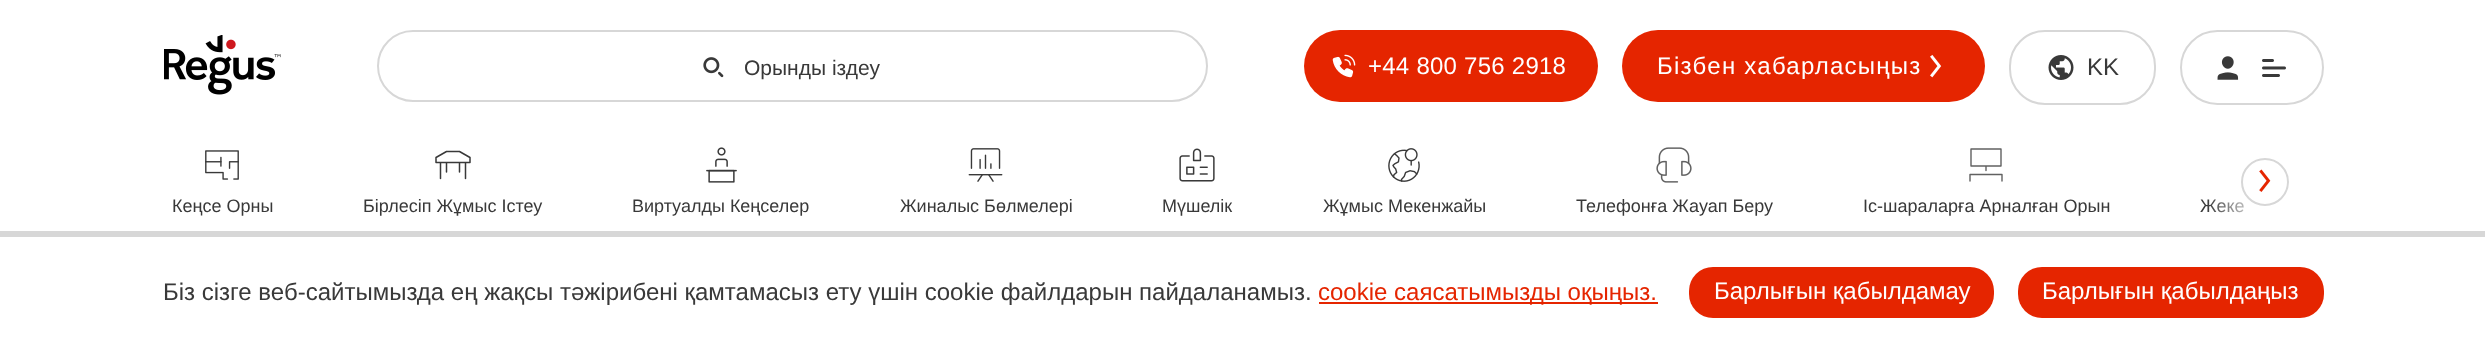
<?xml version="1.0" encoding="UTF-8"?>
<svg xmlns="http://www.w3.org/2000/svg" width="2485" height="337">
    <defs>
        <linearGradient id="g1" gradientUnits="userSpaceOnUse" x1="2205" y1="182" x2="2325" y2="182"><stop offset="0.01" stop-color="#FFFFFF" stop-opacity="0"/><stop offset="0.5" stop-color="#FFFFFF"/><stop offset="1" stop-color="#FFFFFF"/></linearGradient>
    </defs>
    <rect width="100%" height="100%" fill="#FFFFFF"/>
    <image x="164" y="35" width="117" height="60" href="img_01.png"/>
    <rect x="378" y="31" width="829" height="70" rx="35" fill="none" stroke="#D7D7D7" stroke-width="2"/>
    <image x="703" y="57" width="21" height="21" href="img_02.png"/>
    <text x="744" y="75" font-family="Liberation Sans" font-size="21" fill="#393939">Орынды іздеу</text>
    <rect x="1304" y="30" width="294" height="72" rx="36" fill="#E52500"/>
    <image x="1332" y="54" width="24" height="24" href="img_03.png"/>
    <text x="1368" y="74" font-family="Liberation Sans" font-size="24" letter-spacing="0.25" fill="#FFFFFF">+44 800 756 2918</text>
    <rect x="1622" y="30" width="363" height="72" rx="36" fill="#E52500"/>
    <text x="1657" y="74" font-family="Liberation Sans" font-size="24" letter-spacing="1.25" fill="#FFFFFF">Бізбен хабарласыңыз</text>
    <image x="1930" y="54" width="12" height="24" href="img_04.png"/>
    <rect x="2010" y="31" width="145" height="73" rx="35" fill="none" stroke="#D7D7D7" stroke-width="2"/>
    <image x="2048" y="55" width="26" height="25" href="img_05.png"/>
    <text x="2087" y="75" font-family="Liberation Sans" font-size="24" fill="#393939">KK</text>
    <rect x="2181" y="31" width="142" height="73" rx="36.5" fill="none" stroke="#D7D7D7" stroke-width="2"/>
    <image x="2217" y="56" width="22" height="24" href="img_06.png"/>
    <image x="2262" y="59" width="24" height="18" href="img_07.png"/>
    <image x="205" y="150" width="34" height="30" href="img_08.png"/>
    <text x="172" y="212" font-family="Liberation Sans" font-size="18" fill="#393939">Кеңсе Орны</text>
    <path d="M 446.5 162.5 V 172 M 459.5 162.5 V 172 M 465.5 162.5 V 178.5 M 440.5 162.5 V 178.5 M 436 162.5 V 157.5 L 446.5 151.5 H 459.5 L 470 157.5 V 162.5 Z" fill="none" stroke="#393939" stroke-width="1.5" stroke-linecap="round" stroke-linejoin="round"/>
    <text x="363" y="212" font-family="Liberation Sans" font-size="18" fill="#393939">Бірлесіп Жұмыс Істеу</text>
    <image x="706" y="147" width="31" height="36" href="img_09.png"/>
    <text x="632" y="212" font-family="Liberation Sans" font-size="18" fill="#393939">Виртуалды Кеңселер</text>
    <image x="968" y="148" width="35" height="34" href="img_10.png"/>
    <text x="900" y="212" font-family="Liberation Sans" font-size="18" fill="#393939">Жиналыс Бөлмелері</text>
    <image x="1179" y="148" width="36" height="34" href="img_11.png"/>
    <text x="1162" y="212" font-family="Liberation Sans" font-size="18" fill="#393939">Мүшелік</text>
    <image x="1388" y="148" width="32" height="34" href="img_12.png"/>
    <text x="1323" y="212" font-family="Liberation Sans" font-size="18" fill="#393939">Жұмыс Мекенжайы</text>
    <image x="1656" y="147" width="36" height="36" href="img_13.png"/>
    <text x="1576" y="212" font-family="Liberation Sans" font-size="18" fill="#393939">Телефонға Жауап Беру</text>
    <path d="M 2002 181 V 174.5 H 1970 V 181 M 2001 149 H 1971 V 166 H 2001 Z M 1986 170.5 V 166" fill="none" stroke="#616161" stroke-width="1.4" stroke-linecap="round" stroke-linejoin="round"/>
    <text x="1863" y="212" font-family="Liberation Sans" font-size="18" fill="#393939">Іс-шараларға Арналған Орын</text>
    <text x="2200" y="212" font-family="Liberation Sans" font-size="18" fill="#393939">Жеке</text>
    <rect x="2207" y="199" width="37" height="14" fill="url(#g1)"/>
    <circle cx="2265" cy="182" r="23" fill="none" stroke="#D7D7D7" stroke-width="2"/>
    <image x="2259" y="169" width="12" height="23" href="img_14.png"/>
    <rect x="0" y="231" width="2485" height="6" fill="#D7D7D7"/>
    <text x="163" y="300" font-family="Liberation Sans" font-size="24" fill="#393939">Біз сізге веб-сайтымызда ең жақсы тәжірибені қамтамасыз ету үшін cookie файлдарын пайдаланамыз.</text>
    <rect x="1319" y="302" width="339" height="2" fill="#E52500"/>
    <text x="1318" y="300" font-family="Liberation Sans" font-size="24" fill="#E52500">cookie саясатымызды оқыңыз.</text>
    <rect x="1689" y="267" width="305" height="51" rx="24" fill="#E52500"/>
    <text x="1714" y="299" font-family="Liberation Sans" font-size="24" fill="#FFFFFF">Барлығын қабылдамау</text>
    <rect x="2018" y="267" width="306" height="51" rx="24" fill="#E52500"/>
    <text x="2042" y="299" font-family="Liberation Sans" font-size="24" fill="#FFFFFF">Барлығын қабылдаңыз</text>
</svg>
